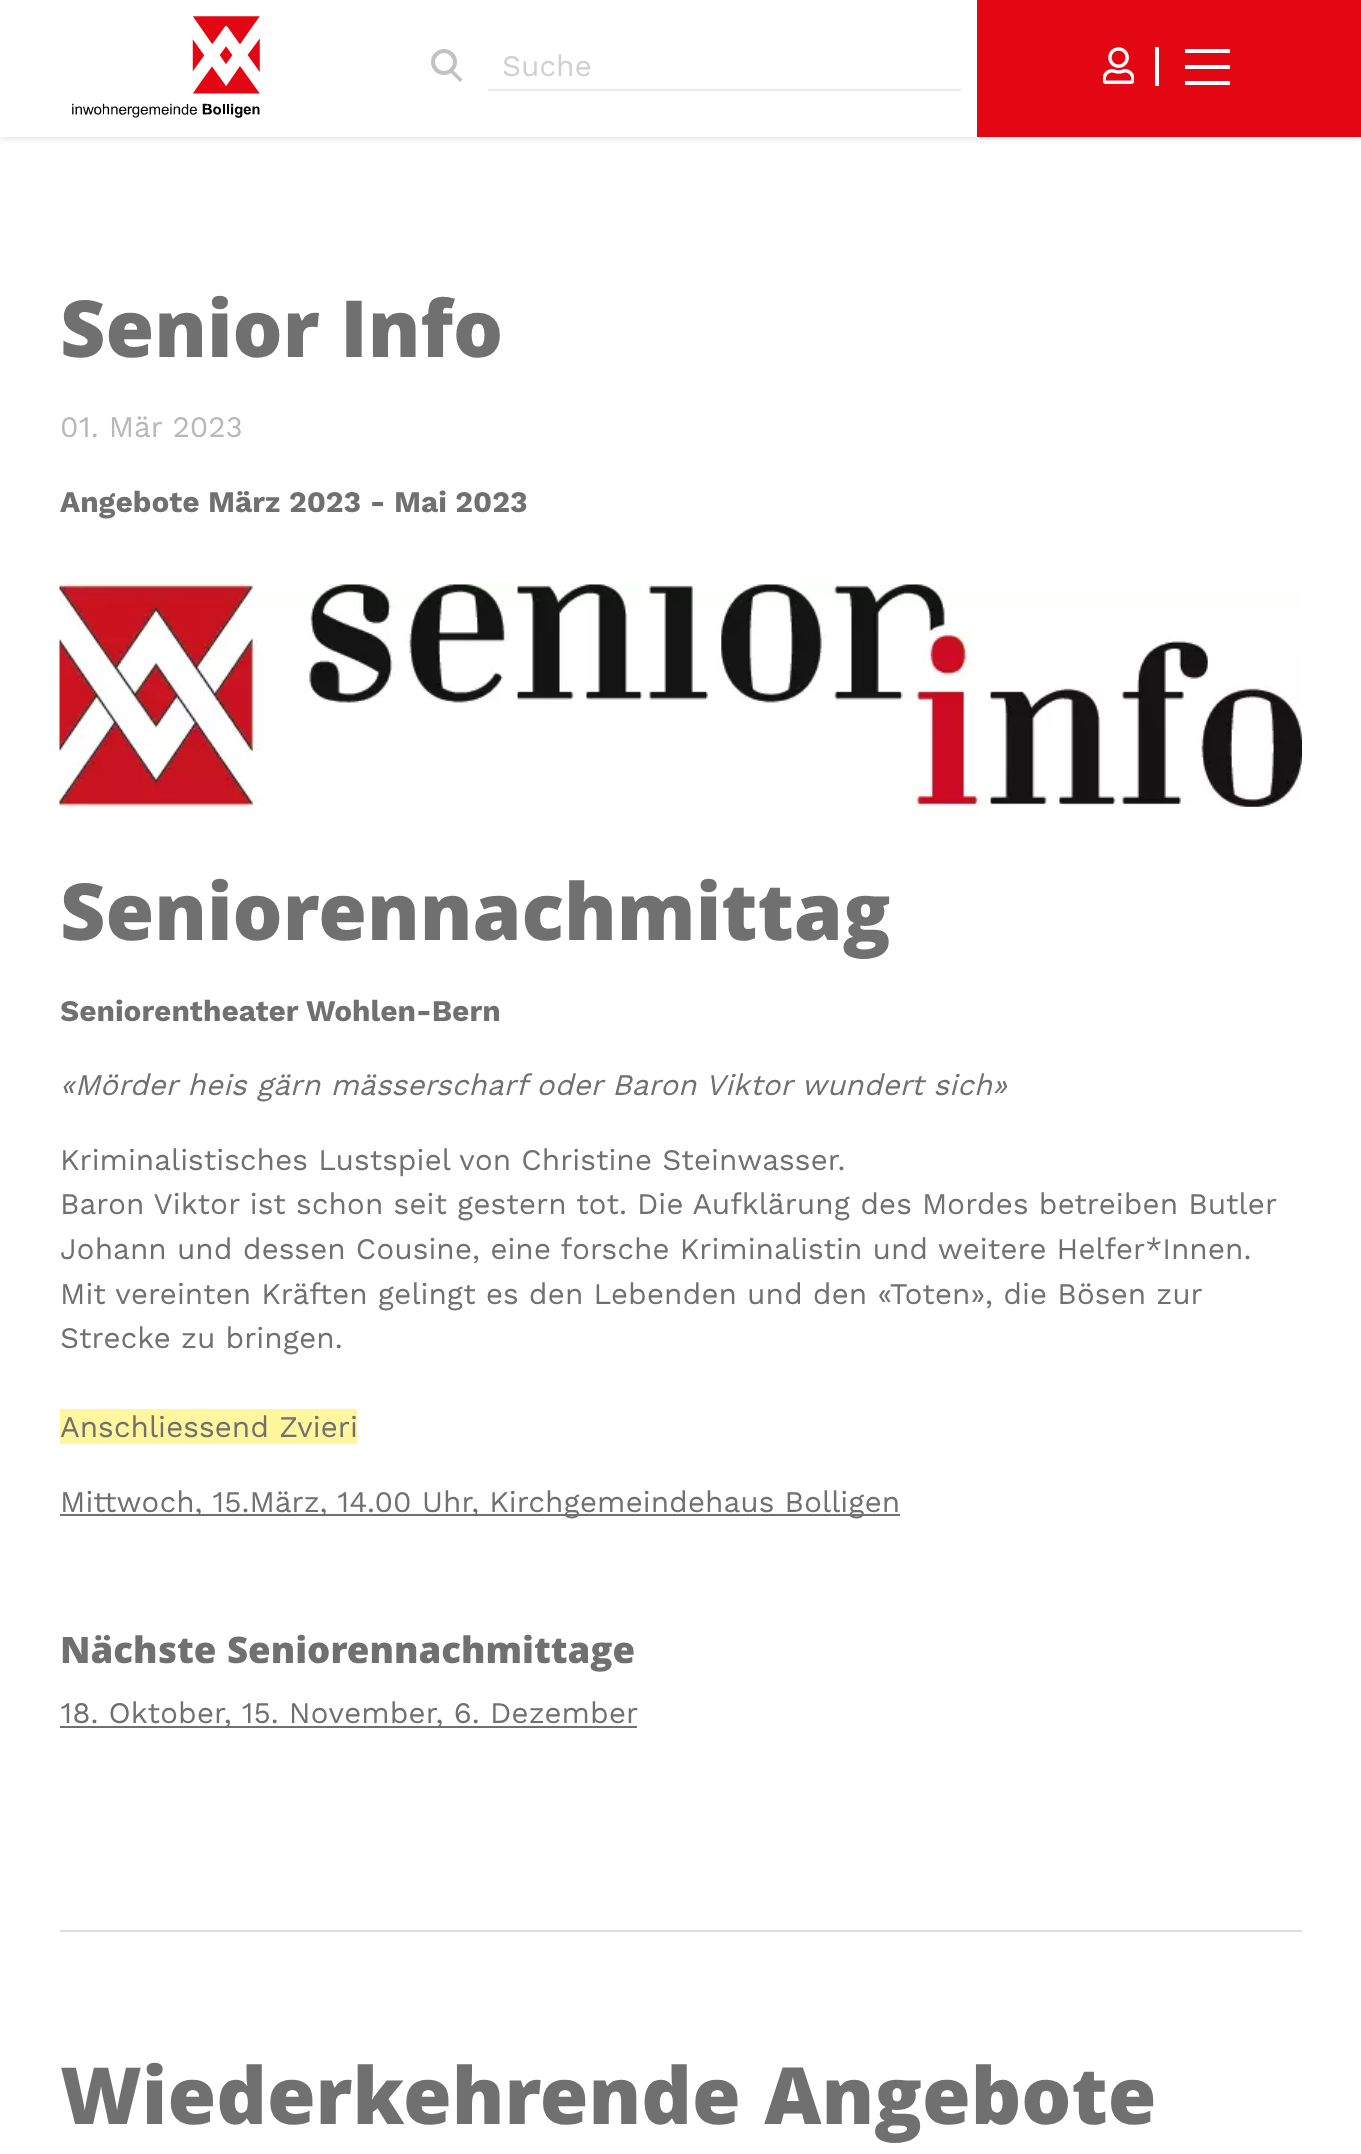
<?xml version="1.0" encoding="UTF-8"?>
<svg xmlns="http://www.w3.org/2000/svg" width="1361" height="2154">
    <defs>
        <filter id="blur1" x="-50%" y="-200%" width="200%" height="500%"><feGaussianBlur stdDeviation="5"/></filter>
    </defs>
    <rect width="100%" height="100%" fill="#FFFFFF"/>
    <rect x="0" y="0" width="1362" height="137" fill="#000000" fill-opacity="0.16" filter="url(#blur1)"/>
    <rect x="0" y="0" width="977" height="137" fill="#FFFFFF"/>
    <image x="72" y="16" width="188" height="102" href="img_01.png"/>
    <circle cx="444" cy="62" r="11" fill="none" stroke="#C2C2C2" stroke-width="4"/>
    <path d="M 451.5 68.5 L 462.5 79.5 L 460 82 L 449 71 Z" fill="#C2C2C2"/>
    <rect x="488" y="89" width="473" height="2" fill="#EAEAEA"/>
    <text x="502" y="76" font-family="Work Sans" font-size="29.75" fill="#D0D0D0">Suche</text>
    <rect x="977" y="0" width="384" height="137" fill="#E30613"/>
    <rect x="1155" y="47" width="4" height="39" fill="#FFFFFF"/>
    <image x="1103" y="47" width="31" height="37" href="img_02.png"/>
    <rect x="1185" y="49" width="45" height="4" fill="#FFFFFF"/>
    <rect x="1185" y="65" width="45" height="4" fill="#FFFFFF"/>
    <rect x="1185" y="81" width="45" height="4" fill="#FFFFFF"/>
    <text x="60" y="357" font-family="Open Sans" font-size="78.8" font-weight="800" fill="#707070">Senior Info</text>
    <text x="60" y="437" font-family="Work Sans" font-size="29.75" fill="#B8B8B8">01. Mär 2023</text>
    <text x="60" y="512" font-family="Work Sans" font-size="29.75" font-weight="700" fill="#707070">Angebote März 2023 - Mai 2023</text>
    <image x="59" y="584" width="1243" height="223" href="img_03.png"/>
    <text x="60" y="940" font-family="Open Sans" font-size="78.8" font-weight="800" fill="#707070">Seniorennachmittag</text>
    <text x="60" y="1021" font-family="Work Sans" font-size="29.75" font-weight="700" fill="#707070">Seniorentheater Wohlen-Bern</text>
    <text x="60" y="1095" font-family="Work Sans" font-size="29.75" font-style="italic" fill="#707070">«Mörder heis gärn mässerscharf oder Baron Viktor wundert sich»</text>
    <text font-family="Work Sans" font-size="29.75" fill="#707070">
        <tspan x="60" y="1170">Kriminalistisches Lustspiel von Christine Steinwasser.</tspan>
        <tspan x="60" y="1214">Baron Viktor ist schon seit gestern tot. Die Aufklärung des Mordes betreiben Butler</tspan>
        <tspan x="60" y="1259">Johann und dessen Cousine, eine forsche Kriminalistin und weitere Helfer*Innen.</tspan>
        <tspan x="60" y="1304">Mit vereinten Kräften gelingt es den Lebenden und den «Toten», die Bösen zur</tspan>
        <tspan x="60" y="1348">Strecke zu bringen.</tspan>
    </text>
    <rect x="60" y="1409" width="297" height="35" fill="#FFF69D"/>
    <text x="60" y="1437" font-family="Work Sans" font-size="29.75" fill="#707070">Anschliessend Zvieri</text>
    <rect x="60" y="1514" width="840" height="2" fill="#707070"/>
    <text x="60" y="1512" font-family="Work Sans" font-size="29.75" fill="#707070">Mittwoch, 15.März, 14.00 Uhr, Kirchgemeindehaus Bolligen</text>
    <text x="60" y="1663" word-spacing="1" font-family="Open Sans" font-size="36.6" font-weight="800" fill="#707070">Nächste Seniorennachmittage</text>
    <rect x="60" y="1726" width="577" height="2" fill="#707070"/>
    <text x="60" y="1723" font-family="Work Sans" font-size="29.75" fill="#707070">18. Oktober, 15. November, 6. Dezember</text>
    <rect x="60" y="1930" width="1242" height="2" fill="#DDDDDD"/>
    <text x="60" y="2124" word-spacing="3" font-family="Open Sans" font-size="78.8" font-weight="800" fill="#707070">Wiederkehrende Angebote</text>
</svg>
